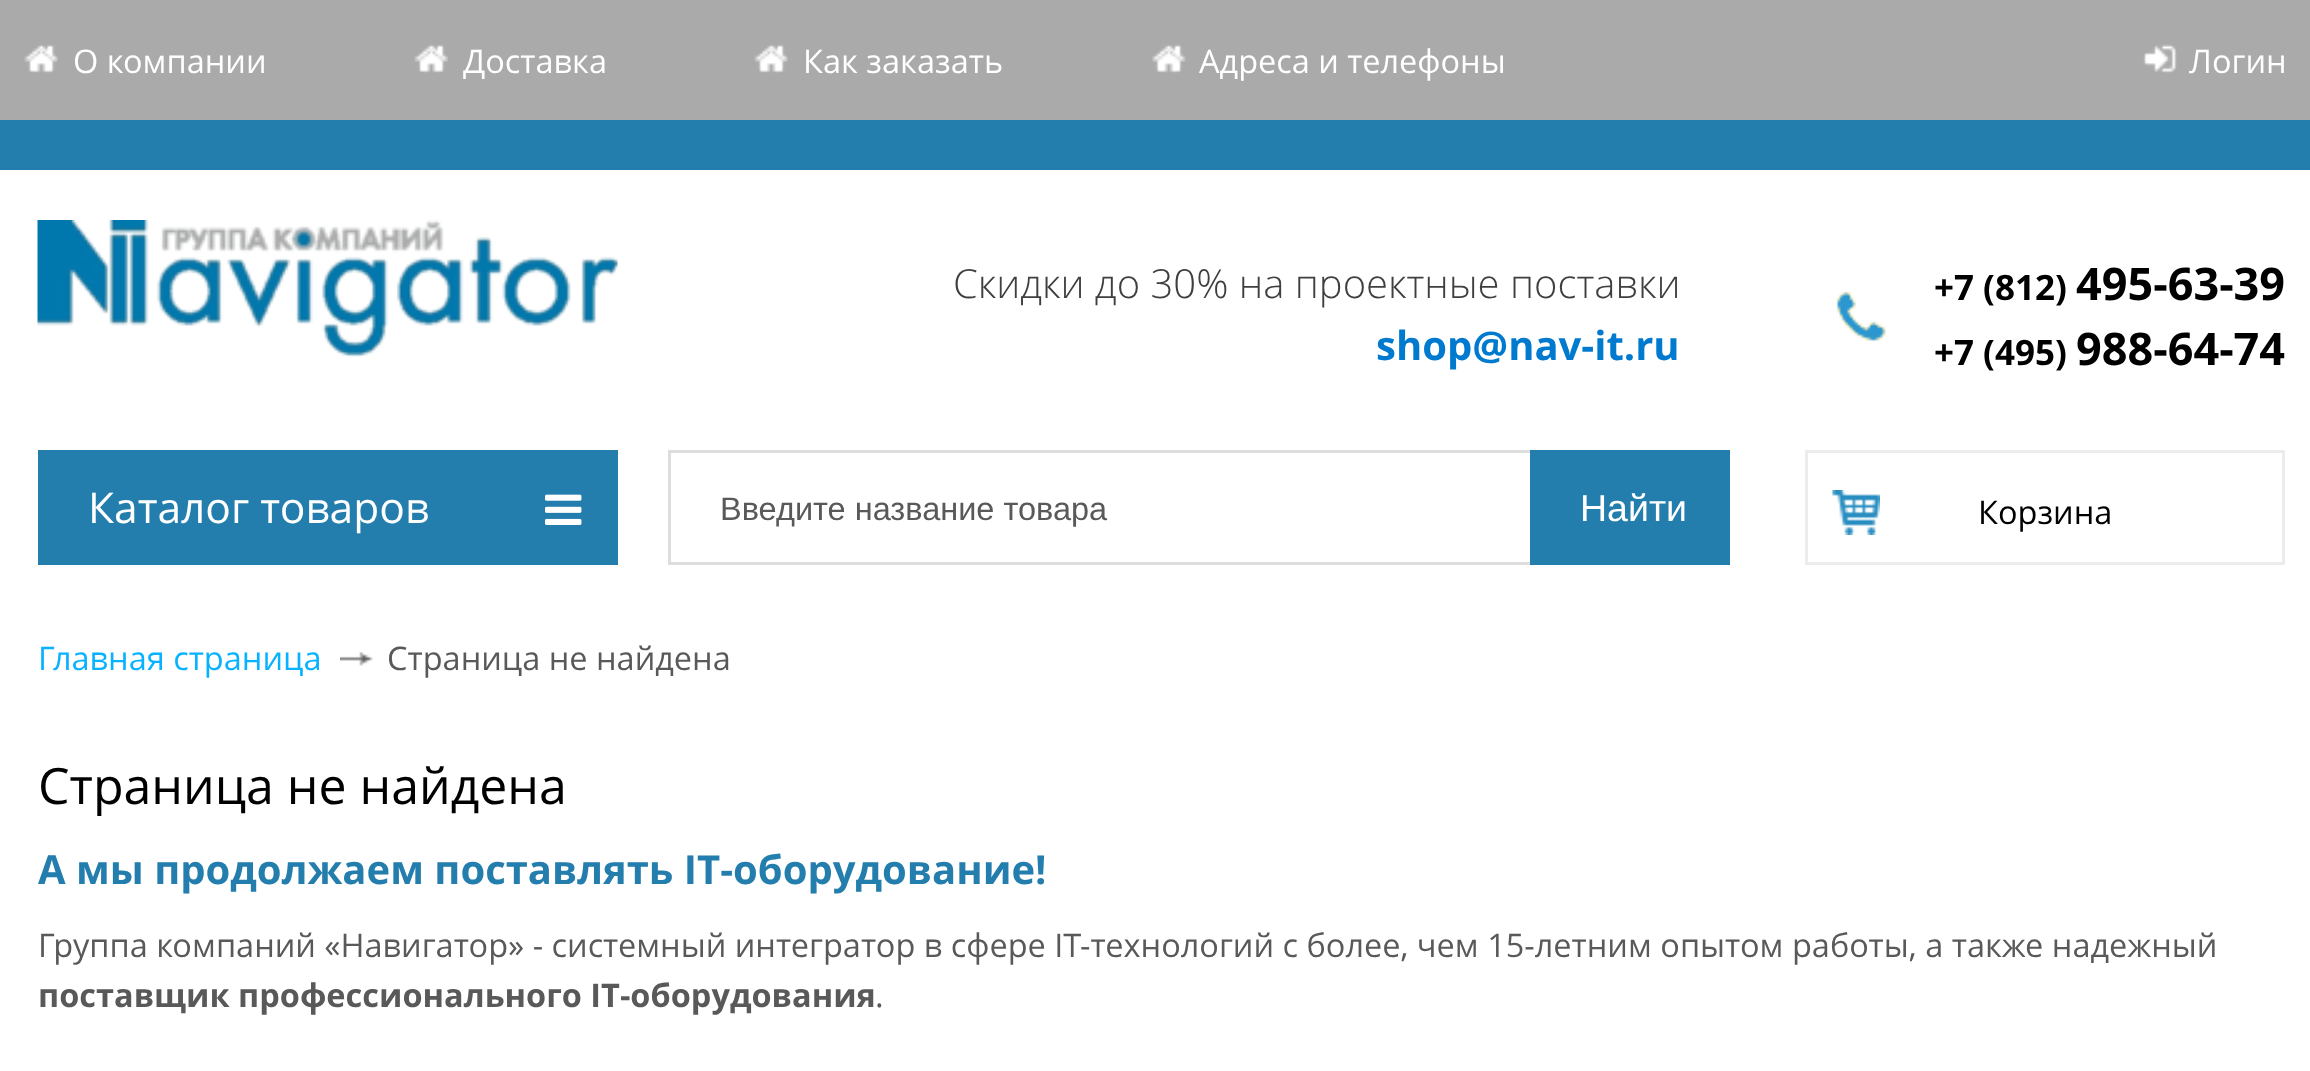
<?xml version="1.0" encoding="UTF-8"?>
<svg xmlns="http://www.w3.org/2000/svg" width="2310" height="1071">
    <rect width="100%" height="100%" fill="#FFFFFF"/>
    <rect x="0" y="0" width="2310" height="120" fill="#AAAAAA"/>
    <image x="24" y="44" width="34" height="29" href="img_01.png"/>
    <text x="73" y="73" font-family="Open Sans" font-size="32.5" fill="#FFFFFF">О компании</text>
    <image x="414" y="44" width="34" height="29" href="img_02.png"/>
    <text x="463" y="73" font-family="Open Sans" font-size="32.5" fill="#FFFFFF">Доставка</text>
    <image x="754" y="44" width="34" height="29" href="img_01.png"/>
    <text x="803" y="73" font-family="Open Sans" font-size="32.5" fill="#FFFFFF">Как заказать</text>
    <image x="1152" y="44" width="34" height="29" href="img_03.png"/>
    <text x="1199" y="73" font-family="Open Sans" font-size="32.5" fill="#FFFFFF">Адреса и телефоны</text>
    <image x="2143" y="44" width="34" height="29" href="img_04.png"/>
    <text x="2189" y="73" font-family="Open Sans" font-size="32.5" fill="#FFFFFF">Логин</text>
    <rect x="0" y="120" width="2310" height="50" fill="#237EAD"/>
    <image x="37" y="220" width="581" height="138" href="img_05.png"/>
    <text x="953" y="298" font-family="Open Sans" font-size="40" font-weight="300" fill="#3F3F3F">Скидки до 30% на проектные поставки</text>
    <text x="1376" y="360" font-family="Open Sans" font-size="40" font-weight="700" fill="#007ACF">shop@nav-it.ru</text>
    <image x="1835" y="291" width="51" height="52" href="img_06.png"/>
    <text x="1934" y="300" font-family="Open Sans" font-size="35" font-weight="700" fill="#000000">+7 (812)</text>
    <text x="2076" y="300" font-family="Open Sans" font-size="45" font-weight="700" fill="#000000">495-63-39</text>
    <text x="1934" y="365" font-family="Open Sans" font-size="35" font-weight="700" fill="#000000">+7 (495)</text>
    <text x="2076" y="365" font-family="Open Sans" font-size="45" font-weight="700" fill="#000000">988-64-74</text>
    <rect x="38" y="450" width="580" height="115" fill="#237EAD"/>
    <text x="88" y="523" font-family="Open Sans" font-size="42.5" fill="#FFFFFF">Каталог товаров</text>
    <image x="545" y="494" width="37" height="31" href="img_07.png"/>
    <rect x="669.5" y="451.5" width="1057" height="112" fill="none" stroke="#DDDDDD" stroke-width="3"/>
    <text x="720" y="520" font-family="Liberation Sans" font-size="32.5" fill="#595959">Введите название товара</text>
    <rect x="1530" y="450" width="200" height="115" fill="#237EAD"/>
    <text x="1580" y="521" font-family="Liberation Sans" font-size="37.5" fill="#FFFFFF">Найти</text>
    <rect x="1806.5" y="451.5" width="477" height="112" fill="none" stroke="#ECECEC" stroke-width="3"/>
    <image x="1832" y="490" width="48" height="45" href="img_08.png"/>
    <text x="1978" y="524" font-family="Open Sans" font-size="32.5" fill="#000000">Корзина</text>
    <text x="38" y="670" font-family="Open Sans" font-size="32.5" fill="#08B2FF">Главная страница</text>
    <image x="340" y="652" width="33" height="14" href="img_09.png"/>
    <text x="387" y="670" font-family="Open Sans" font-size="32.5" fill="#595959">Страница не найдена</text>
    <text x="38" y="804" font-family="Open Sans" font-size="50" fill="#000000">Страница не найдена</text>
    <text x="38" y="884" font-family="Open Sans" font-size="40" font-weight="700" fill="#237EAD">А мы продолжаем поставлять IT-оборудование!</text>
    <text x="38" y="957" font-family="Open Sans" font-size="32.5" fill="#595959">Группа компаний «Навигатор» - системный интегратор в сфере IT-технологий с более, чем 15-летним опытом работы, а также надежный</text>
    <text x="38" y="1007" font-family="Open Sans" font-size="32.5" font-weight="700" fill="#595959">поставщик профессионального IT-оборудования</text>
    <text x="875" y="1007" font-family="Open Sans" font-size="32.5" fill="#595959">.</text>
</svg>
